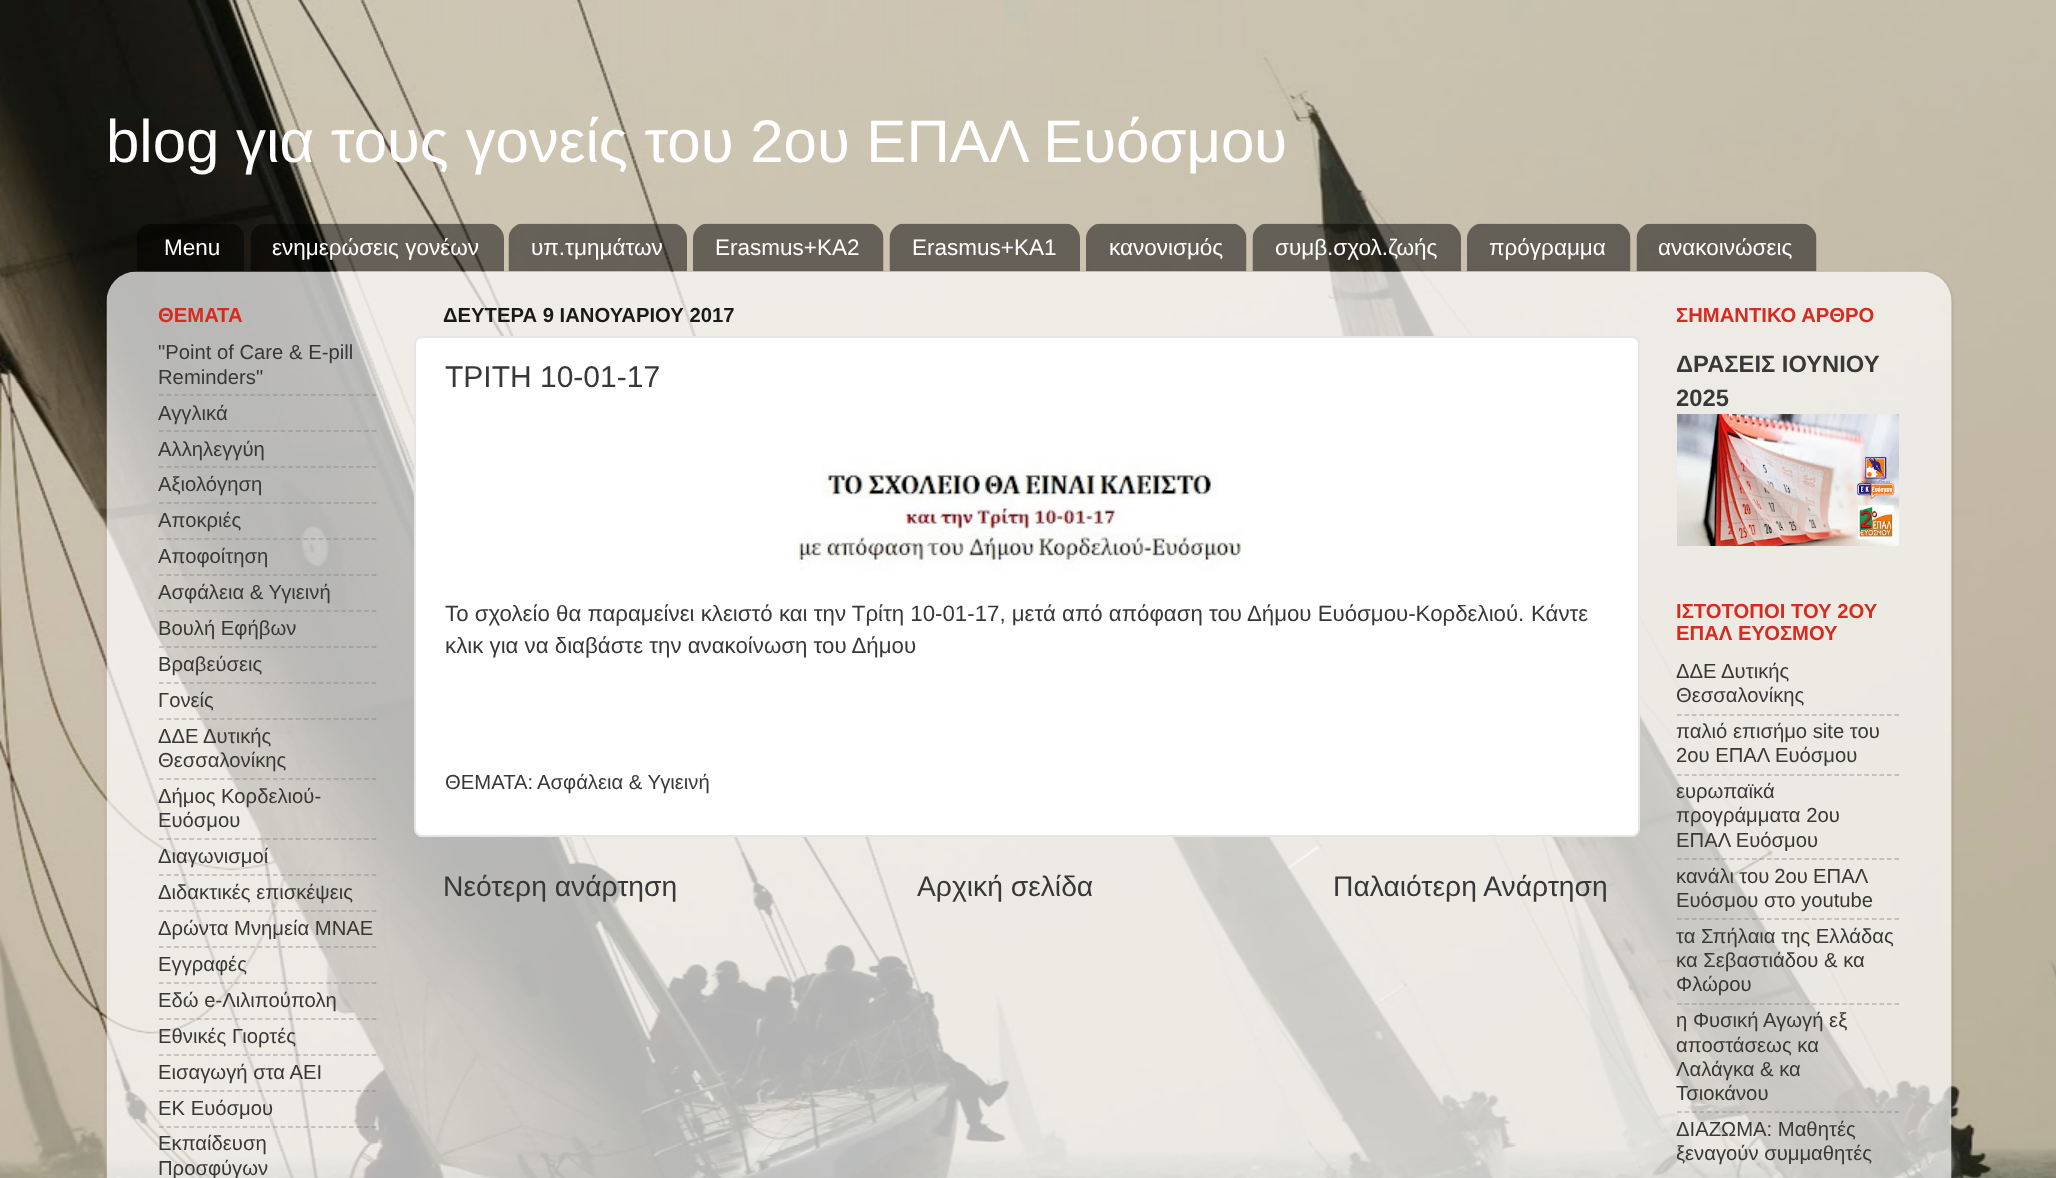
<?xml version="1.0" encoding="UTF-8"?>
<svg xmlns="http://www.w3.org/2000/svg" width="2056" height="1178">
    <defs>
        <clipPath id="clip1"><path d="M 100 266 H 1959 V 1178 H 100 Z M 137 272 H 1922 C 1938.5 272 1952 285.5 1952 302 V 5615 H 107 V 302 C 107 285.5 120.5 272 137 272 Z" clip-rule="evenodd"/></clipPath>
        <filter id="blur1" x="-50%" y="-200%" width="200%" height="500%"><feGaussianBlur stdDeviation="2"/></filter>
    </defs>
    <rect width="100%" height="100%" fill="#FFFFFF"/>
    <image x="0" y="0" width="2056" height="1178" href="img_01.png"/>
    <text x="106" y="162" font-family="Liberation Sans" font-size="60" fill="#FFFFFF">blog για τους γονείς του 2ου ΕΠΑΛ Ευόσμου</text>
    <image x="137" y="224" width="107" height="47" href="img_02.png"/>
    <text x="164" y="255" font-family="Liberation Sans" font-size="22.5" fill="#FFFFFF">Menu</text>
    <image x="250" y="223" width="254" height="49" href="img_03.png"/>
    <text x="272" y="255" font-family="Liberation Sans" font-size="22.5" fill="#FFFFFF">ενημερώσεις γονέων</text>
    <image x="508" y="223" width="179" height="49" href="img_04.png"/>
    <text x="531" y="255" font-family="Liberation Sans" font-size="22.5" fill="#FFFFFF">υπ.τμημάτων</text>
    <image x="693" y="223" width="191" height="49" href="img_05.png"/>
    <text x="715" y="255" font-family="Liberation Sans" font-size="22.5" fill="#FFFFFF">Εrasmus+ΚΑ2</text>
    <image x="889" y="223" width="191" height="49" href="img_06.png"/>
    <text x="912" y="255" font-family="Liberation Sans" font-size="22.5" fill="#FFFFFF">Erasmus+KA1</text>
    <image x="1086" y="223" width="161" height="49" href="img_07.png"/>
    <text x="1109" y="255" font-family="Liberation Sans" font-size="22.5" fill="#FFFFFF">κανονισμός</text>
    <image x="1252" y="223" width="209" height="49" href="img_08.png"/>
    <text x="1275" y="255" font-family="Liberation Sans" font-size="22.5" fill="#FFFFFF">συμβ.σχολ.ζωής</text>
    <image x="1467" y="223" width="164" height="49" href="img_09.png"/>
    <text x="1489" y="255" font-family="Liberation Sans" font-size="22.5" fill="#FFFFFF">πρόγραμμα</text>
    <image x="1636" y="223" width="181" height="49" href="img_10.png"/>
    <text x="1658" y="255" font-family="Liberation Sans" font-size="22.5" fill="#FFFFFF">ανακοινώσεις</text>
    <g clip-path="url(#clip1)">
        <rect x="107" y="273" width="1845" height="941" rx="30" fill="#000000" fill-opacity="0.15" filter="url(#blur1)"/>
    </g>
    <image x="106" y="271" width="1846" height="907" href="img_11.png"/>
    <text x="158" y="322" font-family="Liberation Sans" font-size="20.25" font-weight="700" fill="#D52C1F">ΘΕΜΑΤΑ</text>
    <text font-family="Liberation Sans" font-size="20.25" fill="#383838">
        <tspan x="158" y="359">"Point of Care &amp; E-pill</tspan>
        <tspan x="158" y="384">Reminders"</tspan>
    </text>
    <path d="M 159 395 H 376.5" fill="none" stroke="#808080" stroke-opacity="0.5" stroke-width="1.5" stroke-dasharray="4.5 3.1"/>
    <text x="158" y="420" font-family="Liberation Sans" font-size="20.25" fill="#383838">Αγγλικά</text>
    <path d="M 159 431 H 376.5" fill="none" stroke="#808080" stroke-opacity="0.5" stroke-width="1.5" stroke-dasharray="4.5 3.1"/>
    <text x="158" y="456" font-family="Liberation Sans" font-size="20.25" fill="#383838">Αλληλεγγύη</text>
    <path d="M 159 467 H 376.5" fill="none" stroke="#808080" stroke-opacity="0.5" stroke-width="1.5" stroke-dasharray="4.5 3.1"/>
    <text x="158" y="491" font-family="Liberation Sans" font-size="20.25" fill="#383838">Αξιολόγηση</text>
    <path d="M 159 503 H 376.5" fill="none" stroke="#808080" stroke-opacity="0.5" stroke-width="1.5" stroke-dasharray="4.5 3.1"/>
    <text x="158" y="527" font-family="Liberation Sans" font-size="20.25" fill="#383838">Αποκριές</text>
    <path d="M 159 539 H 376.5" fill="none" stroke="#808080" stroke-opacity="0.5" stroke-width="1.5" stroke-dasharray="4.5 3.1"/>
    <text x="158" y="563" font-family="Liberation Sans" font-size="20.25" fill="#383838">Αποφοίτηση</text>
    <path d="M 159 575 H 376.5" fill="none" stroke="#808080" stroke-opacity="0.5" stroke-width="1.5" stroke-dasharray="4.5 3.1"/>
    <text x="158" y="599" font-family="Liberation Sans" font-size="20.25" fill="#383838">Ασφάλεια &amp; Υγιεινή</text>
    <path d="M 159 611 H 376.5" fill="none" stroke="#808080" stroke-opacity="0.5" stroke-width="1.5" stroke-dasharray="4.5 3.1"/>
    <text x="158" y="635" font-family="Liberation Sans" font-size="20.25" fill="#383838">Βουλή Εφήβων</text>
    <path d="M 159 647 H 376.5" fill="none" stroke="#808080" stroke-opacity="0.5" stroke-width="1.5" stroke-dasharray="4.5 3.1"/>
    <text x="158" y="671" font-family="Liberation Sans" font-size="20.25" fill="#383838">Βραβεύσεις</text>
    <path d="M 159 683 H 376.5" fill="none" stroke="#808080" stroke-opacity="0.5" stroke-width="1.5" stroke-dasharray="4.5 3.1"/>
    <text x="158" y="707" font-family="Liberation Sans" font-size="20.25" fill="#383838">Γονείς</text>
    <path d="M 159 719 H 376.5" fill="none" stroke="#808080" stroke-opacity="0.5" stroke-width="1.5" stroke-dasharray="4.5 3.1"/>
    <text font-family="Liberation Sans" font-size="20.25" fill="#383838">
        <tspan x="158" y="743">ΔΔΕ Δυτικής</tspan>
        <tspan x="158" y="767">Θεσσαλονίκης</tspan>
    </text>
    <path d="M 159 779 H 376.5" fill="none" stroke="#808080" stroke-opacity="0.5" stroke-width="1.5" stroke-dasharray="4.5 3.1"/>
    <text font-family="Liberation Sans" font-size="20.25" fill="#383838">
        <tspan x="158" y="803">Δήμος Κορδελιού-</tspan>
        <tspan x="158" y="827">Ευόσμου</tspan>
    </text>
    <path d="M 159 839 H 376.5" fill="none" stroke="#808080" stroke-opacity="0.5" stroke-width="1.5" stroke-dasharray="4.5 3.1"/>
    <text x="158" y="863" font-family="Liberation Sans" font-size="20.25" fill="#383838">Διαγωνισμοί</text>
    <path d="M 159 875 H 376.5" fill="none" stroke="#808080" stroke-opacity="0.5" stroke-width="1.5" stroke-dasharray="4.5 3.1"/>
    <text x="158" y="899" font-family="Liberation Sans" font-size="20.25" fill="#383838">Διδακτικές επισκέψεις</text>
    <path d="M 159 911 H 376.5" fill="none" stroke="#808080" stroke-opacity="0.5" stroke-width="1.5" stroke-dasharray="4.5 3.1"/>
    <text x="158" y="935" font-family="Liberation Sans" font-size="20.25" fill="#383838">Δρώντα Μνημεία ΜΝΑΕ</text>
    <path d="M 159 947 H 376.5" fill="none" stroke="#808080" stroke-opacity="0.5" stroke-width="1.5" stroke-dasharray="4.5 3.1"/>
    <text x="158" y="971" font-family="Liberation Sans" font-size="20.25" fill="#383838">Εγγραφές</text>
    <path d="M 159 983 H 376.5" fill="none" stroke="#808080" stroke-opacity="0.5" stroke-width="1.5" stroke-dasharray="4.5 3.1"/>
    <text x="158" y="1007" font-family="Liberation Sans" font-size="20.25" fill="#383838">Εδώ e-Λιλιπούπολη</text>
    <path d="M 159 1019 H 376.5" fill="none" stroke="#808080" stroke-opacity="0.5" stroke-width="1.5" stroke-dasharray="4.5 3.1"/>
    <text x="158" y="1043" font-family="Liberation Sans" font-size="20.25" fill="#383838">Εθνικές Γιορτές</text>
    <path d="M 159 1055 H 376.5" fill="none" stroke="#808080" stroke-opacity="0.5" stroke-width="1.5" stroke-dasharray="4.5 3.1"/>
    <text x="158" y="1079" font-family="Liberation Sans" font-size="20.25" fill="#383838">Εισαγωγή στα ΑΕΙ</text>
    <path d="M 159 1091 H 376.5" fill="none" stroke="#808080" stroke-opacity="0.5" stroke-width="1.5" stroke-dasharray="4.5 3.1"/>
    <text x="158" y="1115" font-family="Liberation Sans" font-size="20.25" fill="#383838">ΕΚ Ευόσμου</text>
    <path d="M 159 1127 H 376.5" fill="none" stroke="#808080" stroke-opacity="0.5" stroke-width="1.5" stroke-dasharray="4.5 3.1"/>
    <text font-family="Liberation Sans" font-size="20.25" fill="#383838">
        <tspan x="158" y="1150">Εκπαίδευση</tspan>
        <tspan x="158" y="1175">Προσφύγων</tspan>
    </text>
    <text x="443" y="322" font-family="Liberation Sans" font-size="20.25" font-weight="700" fill="#1A1A1A">ΔΕΥΤΕΡΑ 9 ΙΑΝΟΥΑΡΙΟΥ 2017</text>
    <rect x="415" y="337" width="1224" height="499" rx="7" fill="#FFFFFF" stroke="#E5E5E5" stroke-width="2"/>
    <text x="445" y="387" font-family="Liberation Sans" font-size="30" fill="#383838">ΤΡΙΤΗ 10-01-17</text>
    <image x="797" y="462" width="448" height="108" href="img_12.png"/>
    <text x="445" y="621" font-family="Liberation Sans" font-size="22.25" fill="#383838">Το σχολείο θα παραμείνει κλειστό και την Τρίτη 10-01-17, μετά από απόφαση του Δήμου Ευόσμου-Κορδελιού.</text>
    <text x="1531" y="621" font-family="Liberation Sans" font-size="22.25" fill="#383838">Κάντε</text>
    <text x="445" y="653" font-family="Liberation Sans" font-size="22.25" fill="#383838">κλικ για να διαβάστε την ανακοίνωση του Δήμου</text>
    <text x="445" y="789" font-family="Liberation Sans" font-size="20.25" fill="#383838">ΘΕΜΑΤΑ:</text>
    <text x="537" y="789" font-family="Liberation Sans" font-size="20.25" fill="#383838">Ασφάλεια &amp; Υγιεινή</text>
    <text x="443" y="896" font-family="Liberation Sans" font-size="28.25" fill="#383838">Νεότερη ανάρτηση</text>
    <text x="917" y="896" font-family="Liberation Sans" font-size="28.25" fill="#383838">Αρχική σελίδα</text>
    <text x="1333" y="896" font-family="Liberation Sans" font-size="28.25" fill="#383838">Παλαιότερη Ανάρτηση</text>
    <text x="1676" y="322" font-family="Liberation Sans" font-size="20.25" font-weight="700" fill="#D52C1F">ΣΗΜΑΝΤΙΚΟ ΑΡΘΡΟ</text>
    <text font-family="Liberation Sans" font-size="23.75" font-weight="700" fill="#383838">
        <tspan x="1676" y="372">ΔΡΑΣΕΙΣ ΙΟΥΝΙΟΥ</tspan>
        <tspan x="1676" y="406">2025</tspan>
    </text>
    <image x="1677" y="414" width="222" height="132" href="img_13.png"/>
    <text font-family="Liberation Sans" font-size="20.25" font-weight="700" fill="#D52C1F">
        <tspan x="1676" y="618">ΙΣΤΟΤΟΠΟΙ ΤΟΥ 2ΟΥ</tspan>
        <tspan x="1676" y="640">ΕΠΑΛ ΕΥΟΣΜΟΥ</tspan>
    </text>
    <text font-family="Liberation Sans" font-size="20.25" fill="#383838">
        <tspan x="1676" y="678">ΔΔΕ Δυτικής</tspan>
        <tspan x="1676" y="702">Θεσσαλονίκης</tspan>
    </text>
    <path d="M 1677 715 H 1899" fill="none" stroke="#808080" stroke-opacity="0.5" stroke-width="1.5" stroke-dasharray="4.5 3"/>
    <text font-family="Liberation Sans" font-size="20.25" fill="#383838">
        <tspan x="1676" y="738">παλιό επισήμο site του</tspan>
        <tspan x="1676" y="762">2ου ΕΠΑΛ Ευόσμου</tspan>
    </text>
    <path d="M 1677 775 H 1899" fill="none" stroke="#808080" stroke-opacity="0.5" stroke-width="1.5" stroke-dasharray="4.5 3"/>
    <text font-family="Liberation Sans" font-size="20.25" fill="#383838">
        <tspan x="1676" y="798">ευρωπαϊκά</tspan>
        <tspan x="1676" y="822">προγράμματα 2ου</tspan>
        <tspan x="1676" y="847">ΕΠΑΛ Ευόσμου</tspan>
    </text>
    <path d="M 1677 859 H 1899" fill="none" stroke="#808080" stroke-opacity="0.5" stroke-width="1.5" stroke-dasharray="4.5 3"/>
    <text font-family="Liberation Sans" font-size="20.25" fill="#383838">
        <tspan x="1676" y="883" word-spacing="-0.5">κανάλι του 2ου ΕΠΑΛ</tspan>
        <tspan x="1676" y="907">Ευόσμου στο youtube</tspan>
    </text>
    <path d="M 1677 919 H 1899" fill="none" stroke="#808080" stroke-opacity="0.5" stroke-width="1.5" stroke-dasharray="4.5 3"/>
    <text font-family="Liberation Sans" font-size="20.25" fill="#383838">
        <tspan x="1676" y="943">τα Σπήλαια της Ελλάδας</tspan>
        <tspan x="1676" y="967">κα Σεβαστιάδου &amp; κα</tspan>
        <tspan x="1676" y="991">Φλώρου</tspan>
    </text>
    <path d="M 1677 1004 H 1899" fill="none" stroke="#808080" stroke-opacity="0.5" stroke-width="1.5" stroke-dasharray="4.5 3"/>
    <text font-family="Liberation Sans" font-size="20.25" fill="#383838">
        <tspan x="1676" y="1027">η Φυσική Αγωγή εξ</tspan>
        <tspan x="1676" y="1052">αποστάσεως κα</tspan>
        <tspan x="1676" y="1076">Λαλάγκα &amp; κα</tspan>
        <tspan x="1676" y="1100">Τσιοκάνου</tspan>
    </text>
    <path d="M 1677 1112 H 1899" fill="none" stroke="#808080" stroke-opacity="0.5" stroke-width="1.5" stroke-dasharray="4.5 3"/>
    <text font-family="Liberation Sans" font-size="20.25" fill="#383838">
        <tspan x="1676" y="1136">ΔΙΑΖΩΜΑ: Μαθητές</tspan>
        <tspan x="1676" y="1160">ξεναγούν συμμαθητές</tspan>
    </text>
</svg>
